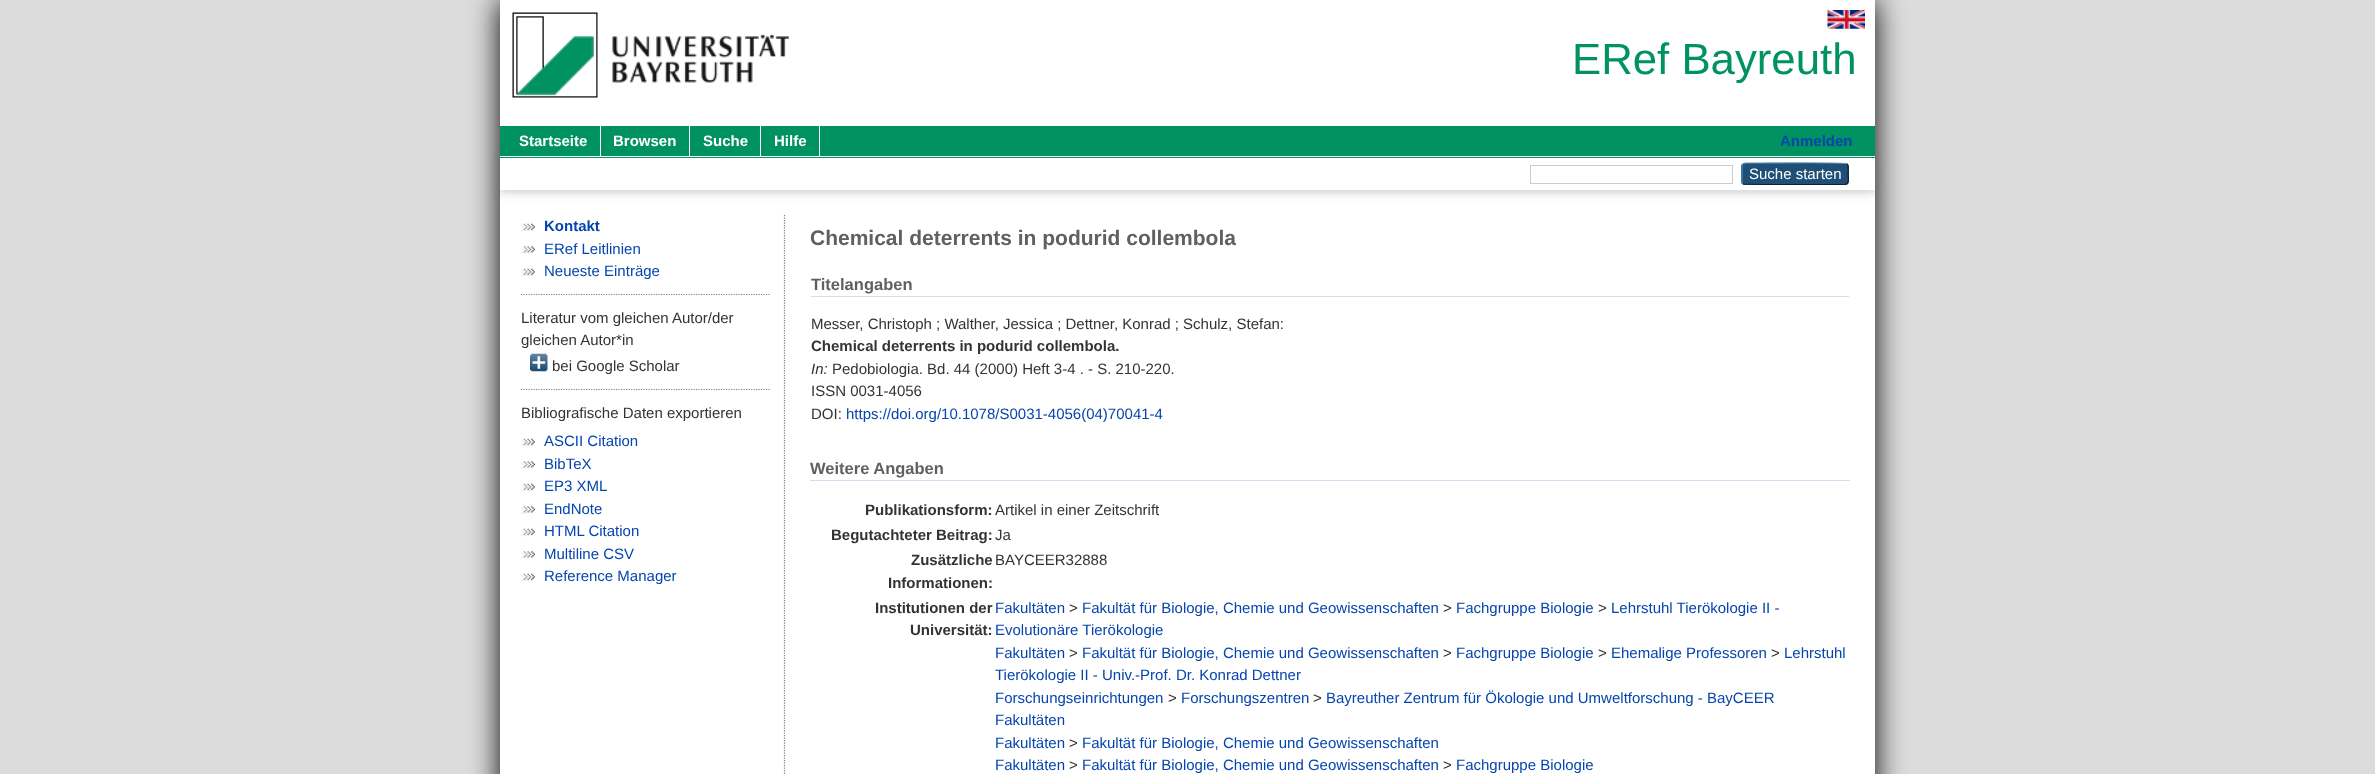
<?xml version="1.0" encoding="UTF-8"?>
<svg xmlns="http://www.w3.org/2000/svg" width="2375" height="774">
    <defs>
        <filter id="blur1" x="-50%" y="-200%" width="200%" height="500%"><feGaussianBlur stdDeviation="15"/></filter>
        <clipPath id="clip1"><path d="M 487 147 H 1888 V 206 H 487 Z M 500 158 H 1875 V 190 H 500 Z" clip-rule="evenodd"/></clipPath>
        <filter id="blur2" x="-50%" y="-200%" width="200%" height="500%"><feGaussianBlur stdDeviation="4"/></filter>
    </defs>
    <rect width="100%" height="100%" fill="#DCDCDC"/>
    <rect x="500" y="0" width="1375" height="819" fill="#000000" filter="url(#blur1)"/>
    <rect x="500" y="0" width="1375" height="774" fill="#FFFFFF"/>
    <image x="512" y="12" width="277" height="86" href="img_01.png"/>
    <image x="1827" y="10" width="38" height="19" href="img_02.png"/>
    <text x="1572" y="74" font-family="Liberation Sans" font-size="43.75" fill="#009260">ERef Bayreuth</text>
    <rect x="500" y="126" width="1375" height="32" fill="#009260"/>
    <rect x="500" y="156" width="1375" height="1" fill="#FFFFFF"/>
    <g clip-path="url(#clip1)">
        <rect x="500" y="160" width="1375" height="33" fill="#646464" fill-opacity="0.3" filter="url(#blur2)"/>
    </g>
    <rect x="506" y="155" width="314" height="3" fill="#009260"/>
    <rect x="506" y="156" width="314" height="1" fill="#FFFFFF"/>
    <rect x="600" y="126" width="1" height="30" fill="#FFFFFF"/>
    <text x="519" y="146" font-family="Liberation Sans" font-size="15" font-weight="700" fill="#FFFFFF">Startseite</text>
    <rect x="689" y="126" width="1" height="30" fill="#FFFFFF"/>
    <text x="613" y="146" font-family="Liberation Sans" font-size="15" font-weight="700" fill="#FFFFFF">Browsen</text>
    <rect x="760" y="126" width="1" height="30" fill="#FFFFFF"/>
    <text x="703" y="146" font-family="Liberation Sans" font-size="15" font-weight="700" fill="#FFFFFF">Suche</text>
    <rect x="819" y="126" width="1" height="30" fill="#FFFFFF"/>
    <text x="774" y="146" font-family="Liberation Sans" font-size="15" font-weight="700" fill="#FFFFFF">Hilfe</text>
    <text x="1780" y="146" font-family="Liberation Sans" font-size="15" font-weight="700" fill="#0645AD">Anmelden</text>
    <rect x="1530.5" y="165.5" width="202" height="18" fill="none" stroke="#CCCCCC"/>
    <rect x="1741" y="163" width="108" height="22" rx="4" fill="#1F4F76"/>
    <path d="M 1743 164 L 1745 163 H 1761.5 C 1770.5 163 1845 162 1847 164" fill="none" stroke="#5B97C7" stroke-width="1.2"/>
    <path d="M 1847 164 C 1849 166 1848 171.5 1848 174 C 1848 176 1850 184.5 1845 184.5 H 1761.5 L 1743.5 184 L 1743 183.5" fill="none" stroke="#0D2131" stroke-width="1.2"/>
    <path d="M 1743 183.5 C 1742 183 1742 182 1742 181 V 166 C 1742 165.5 1742 164.5 1743 164" fill="none" stroke="#5287B3" stroke-width="1.2"/>
    <text x="1749" y="179" font-family="Liberation Sans" font-size="15" fill="#FFFFFF">Suche starten</text>
    <image x="521" y="223" width="14" height="9" href="img_03.png"/>
    <text x="544" y="231" font-family="Liberation Sans" font-size="15" font-weight="700" fill="#0645AD">Kontakt</text>
    <image x="521" y="246" width="14" height="8" href="img_04.png"/>
    <text x="544" y="254" font-family="Liberation Sans" font-size="15" fill="#0645AD">ERef Leitlinien</text>
    <image x="521" y="268" width="14" height="9" href="img_03.png"/>
    <text x="544" y="276" font-family="Liberation Sans" font-size="15" fill="#0645AD">Neueste Einträge</text>
    <path d="M 521 294.5 H 771" fill="none" stroke="#808080" stroke-width="1.2" stroke-dasharray="1.25 1.25"/>
    <text font-family="Liberation Sans" font-size="15" fill="#333333">
        <tspan x="521" y="323">Literatur vom gleichen Autor/der</tspan>
        <tspan x="521" y="345">gleichen Autor*in</tspan>
    </text>
    <image x="530" y="353" width="18" height="19" href="img_05.png"/>
    <text x="552" y="371" font-family="Liberation Sans" font-size="15" fill="#333333">bei Google Scholar</text>
    <path d="M 521 389.5 H 771" fill="none" stroke="#808080" stroke-width="1.2" stroke-dasharray="1.25 1.25"/>
    <text x="521" y="418" font-family="Liberation Sans" font-size="15" fill="#333333">Bibliografische Daten exportieren</text>
    <image x="521" y="438" width="14" height="9" href="img_03.png"/>
    <text x="544" y="446" font-family="Liberation Sans" font-size="15" fill="#0645AD">ASCII Citation</text>
    <image x="521" y="461" width="14" height="8" href="img_04.png"/>
    <text x="544" y="469" font-family="Liberation Sans" font-size="15" fill="#0645AD">BibTeX</text>
    <image x="521" y="483" width="14" height="9" href="img_03.png"/>
    <text x="544" y="491" font-family="Liberation Sans" font-size="15" fill="#0645AD">EP3 XML</text>
    <image x="521" y="506" width="14" height="8" href="img_04.png"/>
    <text x="544" y="514" font-family="Liberation Sans" font-size="15" fill="#0645AD">EndNote</text>
    <image x="521" y="528" width="14" height="9" href="img_03.png"/>
    <text x="544" y="536" font-family="Liberation Sans" font-size="15" fill="#0645AD">HTML Citation</text>
    <image x="521" y="551" width="14" height="8" href="img_04.png"/>
    <text x="544" y="559" font-family="Liberation Sans" font-size="15" fill="#0645AD">Multiline CSV</text>
    <image x="521" y="573" width="14" height="9" href="img_03.png"/>
    <text x="544" y="581" font-family="Liberation Sans" font-size="15" fill="#0645AD">Reference Manager</text>
    <path d="M 784.5 215 V 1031" fill="none" stroke="#808080" stroke-width="1.2" stroke-dasharray="1.25 1.25"/>
    <text x="810" y="245" font-family="Liberation Sans" font-size="21" font-weight="700" fill="#606060">Chemical deterrents in podurid collembola</text>
    <rect x="811" y="296" width="1038" height="1" fill="#D8DBEF"/>
    <text x="811" y="290" font-family="Liberation Sans" font-size="16.5" font-weight="700" fill="#606060">Titelangaben</text>
    <text x="811" y="329" font-family="Liberation Sans" font-size="15" fill="#333333">Messer, Christoph ; Walther, Jessica ; Dettner, Konrad ; Schulz, Stefan:</text>
    <text x="811" y="351" font-family="Liberation Sans" font-size="15" font-weight="700" fill="#333333">Chemical deterrents in podurid collembola.</text>
    <text x="811" y="374" font-family="Liberation Sans" font-size="15" font-style="italic" fill="#333333">In:</text>
    <text x="832" y="374" font-family="Liberation Sans" font-size="15" fill="#333333">Pedobiologia. Bd. 44 (2000) Heft 3-4 . - S. 210-220.</text>
    <text font-family="Liberation Sans" font-size="15" fill="#333333">
        <tspan x="811" y="396">ISSN 0031-4056</tspan>
        <tspan x="811" y="419">DOI:</tspan>
    </text>
    <text x="846" y="419" font-family="Liberation Sans" font-size="15" fill="#0645AD">https://doi.org/10.1078/S0031-4056(04)70041-4</text>
    <rect x="810" y="480" width="1040" height="1" fill="#D8DBEF"/>
    <text x="810" y="474" font-family="Liberation Sans" font-size="16.5" font-weight="700" fill="#606060">Weitere Angaben</text>
    <text x="865" y="515" font-family="Liberation Sans" font-size="15" font-weight="700" fill="#333333">Publikationsform:</text>
    <text x="995" y="515" font-family="Liberation Sans" font-size="15" fill="#333333">Artikel in einer Zeitschrift</text>
    <text x="831" y="540" font-family="Liberation Sans" font-size="15" font-weight="700" fill="#333333">Begutachteter Beitrag:</text>
    <text x="995" y="540" font-family="Liberation Sans" font-size="15" fill="#333333">Ja</text>
    <text x="911" y="565" font-family="Liberation Sans" font-size="15" font-weight="700" fill="#333333">Zusätzliche</text>
    <text x="888" y="588" font-family="Liberation Sans" font-size="15" font-weight="700" fill="#333333">Informationen:</text>
    <text x="995" y="565" font-family="Liberation Sans" font-size="15" fill="#333333">BAYCEER32888</text>
    <text x="875" y="613" font-family="Liberation Sans" font-size="15" font-weight="700" fill="#333333">Institutionen der</text>
    <text x="910" y="635" font-family="Liberation Sans" font-size="15" font-weight="700" fill="#333333">Universität:</text>
    <text x="995" y="613" font-family="Liberation Sans" font-size="15" fill="#0645AD">Fakultäten</text>
    <text x="1069" y="613" font-family="Liberation Sans" font-size="15" fill="#333333">&gt;</text>
    <text x="1082" y="613" font-family="Liberation Sans" font-size="15" fill="#0645AD">Fakultät für Biologie, Chemie und Geowissenschaften</text>
    <text x="1443" y="613" font-family="Liberation Sans" font-size="15" fill="#333333">&gt;</text>
    <text x="1456" y="613" font-family="Liberation Sans" font-size="15" fill="#0645AD">Fachgruppe Biologie</text>
    <text x="1598" y="613" font-family="Liberation Sans" font-size="15" fill="#333333">&gt;</text>
    <text x="1611" y="613" font-family="Liberation Sans" font-size="15" fill="#0645AD">Lehrstuhl Tierökologie II -</text>
    <text font-family="Liberation Sans" font-size="15" fill="#0645AD">
        <tspan x="995" y="635">Evolutionäre Tierökologie</tspan>
        <tspan x="995" y="658">Fakultäten</tspan>
    </text>
    <text x="1069" y="658" font-family="Liberation Sans" font-size="15" fill="#333333">&gt;</text>
    <text x="1082" y="658" font-family="Liberation Sans" font-size="15" fill="#0645AD">Fakultät für Biologie, Chemie und Geowissenschaften</text>
    <text x="1443" y="658" font-family="Liberation Sans" font-size="15" fill="#333333">&gt;</text>
    <text x="1456" y="658" font-family="Liberation Sans" font-size="15" fill="#0645AD">Fachgruppe Biologie</text>
    <text x="1598" y="658" font-family="Liberation Sans" font-size="15" fill="#333333">&gt;</text>
    <text x="1611" y="658" font-family="Liberation Sans" font-size="15" fill="#0645AD">Ehemalige Professoren</text>
    <text x="1771" y="658" font-family="Liberation Sans" font-size="15" fill="#333333">&gt;</text>
    <text x="1784" y="658" font-family="Liberation Sans" font-size="15" fill="#0645AD">Lehrstuhl</text>
    <text font-family="Liberation Sans" font-size="15" fill="#0645AD">
        <tspan x="995" y="680">Tierökologie II - Univ.-Prof. Dr. Konrad Dettner</tspan>
        <tspan x="995" y="703">Forschungseinrichtungen</tspan>
    </text>
    <text x="1168" y="703" font-family="Liberation Sans" font-size="15" fill="#333333">&gt;</text>
    <text x="1181" y="703" font-family="Liberation Sans" font-size="15" fill="#0645AD">Forschungszentren</text>
    <text x="1313" y="703" font-family="Liberation Sans" font-size="15" fill="#333333">&gt;</text>
    <text x="1326" y="703" font-family="Liberation Sans" font-size="15" fill="#0645AD">Bayreuther Zentrum für Ökologie und Umweltforschung - BayCEER</text>
    <text font-family="Liberation Sans" font-size="15" fill="#0645AD">
        <tspan x="995" y="725">Fakultäten</tspan>
        <tspan x="995" y="748">Fakultäten</tspan>
    </text>
    <text x="1069" y="748" font-family="Liberation Sans" font-size="15" fill="#333333">&gt;</text>
    <text x="1082" y="748" font-family="Liberation Sans" font-size="15" fill="#0645AD">Fakultät für Biologie, Chemie und Geowissenschaften</text>
    <text x="995" y="770" font-family="Liberation Sans" font-size="15" fill="#0645AD">Fakultäten</text>
    <text x="1069" y="770" font-family="Liberation Sans" font-size="15" fill="#333333">&gt;</text>
    <text x="1082" y="770" font-family="Liberation Sans" font-size="15" fill="#0645AD">Fakultät für Biologie, Chemie und Geowissenschaften</text>
    <text x="1443" y="770" font-family="Liberation Sans" font-size="15" fill="#333333">&gt;</text>
    <text x="1456" y="770" font-family="Liberation Sans" font-size="15" fill="#0645AD">Fachgruppe Biologie</text>
</svg>
